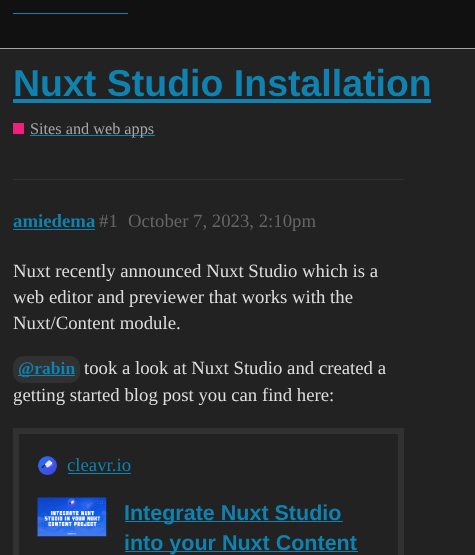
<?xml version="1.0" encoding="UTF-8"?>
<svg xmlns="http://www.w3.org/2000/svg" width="475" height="555">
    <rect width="100%" height="100%" fill="#222222"/>
    <rect x="0" y="0" width="475" height="48" fill="#111111"/>
    <rect x="0" y="48" width="475" height="1" fill="#A4A4A4"/>
    <rect x="13" y="13" width="115" height="1" fill="#0F82AF"/>
    <text x="13" y="96" font-family="Liberation Sans" font-size="37.5" font-weight="700" fill="#0F82AF">Nuxt Studio Installation</text>
    <rect x="13" y="99" width="418" height="4" fill="#0F82AF"/>
    <rect x="13" y="123" width="11" height="11" fill="#ED207B"/>
    <rect x="30" y="135" width="125" height="1" fill="#0F82AF"/>
    <text x="30" y="134" font-family="Liberation Serif" font-size="16.25" fill="#A6A6A6">Sites and web apps</text>
    <rect x="13" y="179" width="391" height="1" fill="#313131"/>
    <text x="13" y="227" font-family="Liberation Serif" font-size="18.75" font-weight="700" fill="#0F82AF">amiedema</text>
    <rect x="13" y="229" width="82" height="1" fill="#0F82AF"/>
    <text x="99" y="227" font-family="Liberation Serif" font-size="18.75" fill="#666666">#1</text>
    <text x="128" y="227" font-family="Liberation Serif" font-size="18.75" fill="#666666">October 7, 2023, 2:10pm</text>
    <text font-family="Liberation Serif" font-size="18.75" fill="#DDDDDD">
        <tspan x="13" y="277">Nuxt recently announced Nuxt Studio which is a</tspan>
        <tspan x="13" y="303">web editor and previewer that works with the</tspan>
        <tspan x="13" y="329">Nuxt/Content module.</tspan>
    </text>
    <rect x="13" y="356" width="67" height="27" rx="10" fill="#313131"/>
    <rect x="18" y="375" width="57" height="1" fill="#0F82AF"/>
    <text x="18" y="374" font-family="Liberation Serif" font-size="17.5" font-weight="700" fill="#0F82AF">@rabin</text>
    <text x="84" y="374" font-family="Liberation Serif" font-size="18.75" fill="#DDDDDD">took a look at Nuxt Studio and created a</text>
    <text x="13" y="401" font-family="Liberation Serif" font-size="18.75" fill="#DDDDDD">getting started blog post you can find here:</text>
    <rect x="16" y="431" width="385" height="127" fill="none" stroke="#313131" stroke-width="6"/>
    <image x="38" y="456" width="19" height="19" href="img_01.png"/>
    <text x="67" y="471" font-family="Liberation Serif" font-size="18.75" fill="#0F82AF">cleavr.io</text>
    <rect x="68" y="473" width="63" height="1" fill="#0F82AF"/>
    <image x="37" y="497" width="70" height="40" href="img_02.png"/>
    <rect x="125" y="521" width="218" height="1" fill="#0F82AF"/>
    <text x="124" y="520" font-family="Liberation Sans" font-size="21.5" font-weight="700" fill="#0F82AF">Integrate Nuxt Studio</text>
    <rect x="125" y="551" width="233" height="1" fill="#0F82AF"/>
    <text x="124" y="550" font-family="Liberation Sans" font-size="21.5" font-weight="700" fill="#0F82AF">into your Nuxt Content</text>
</svg>
